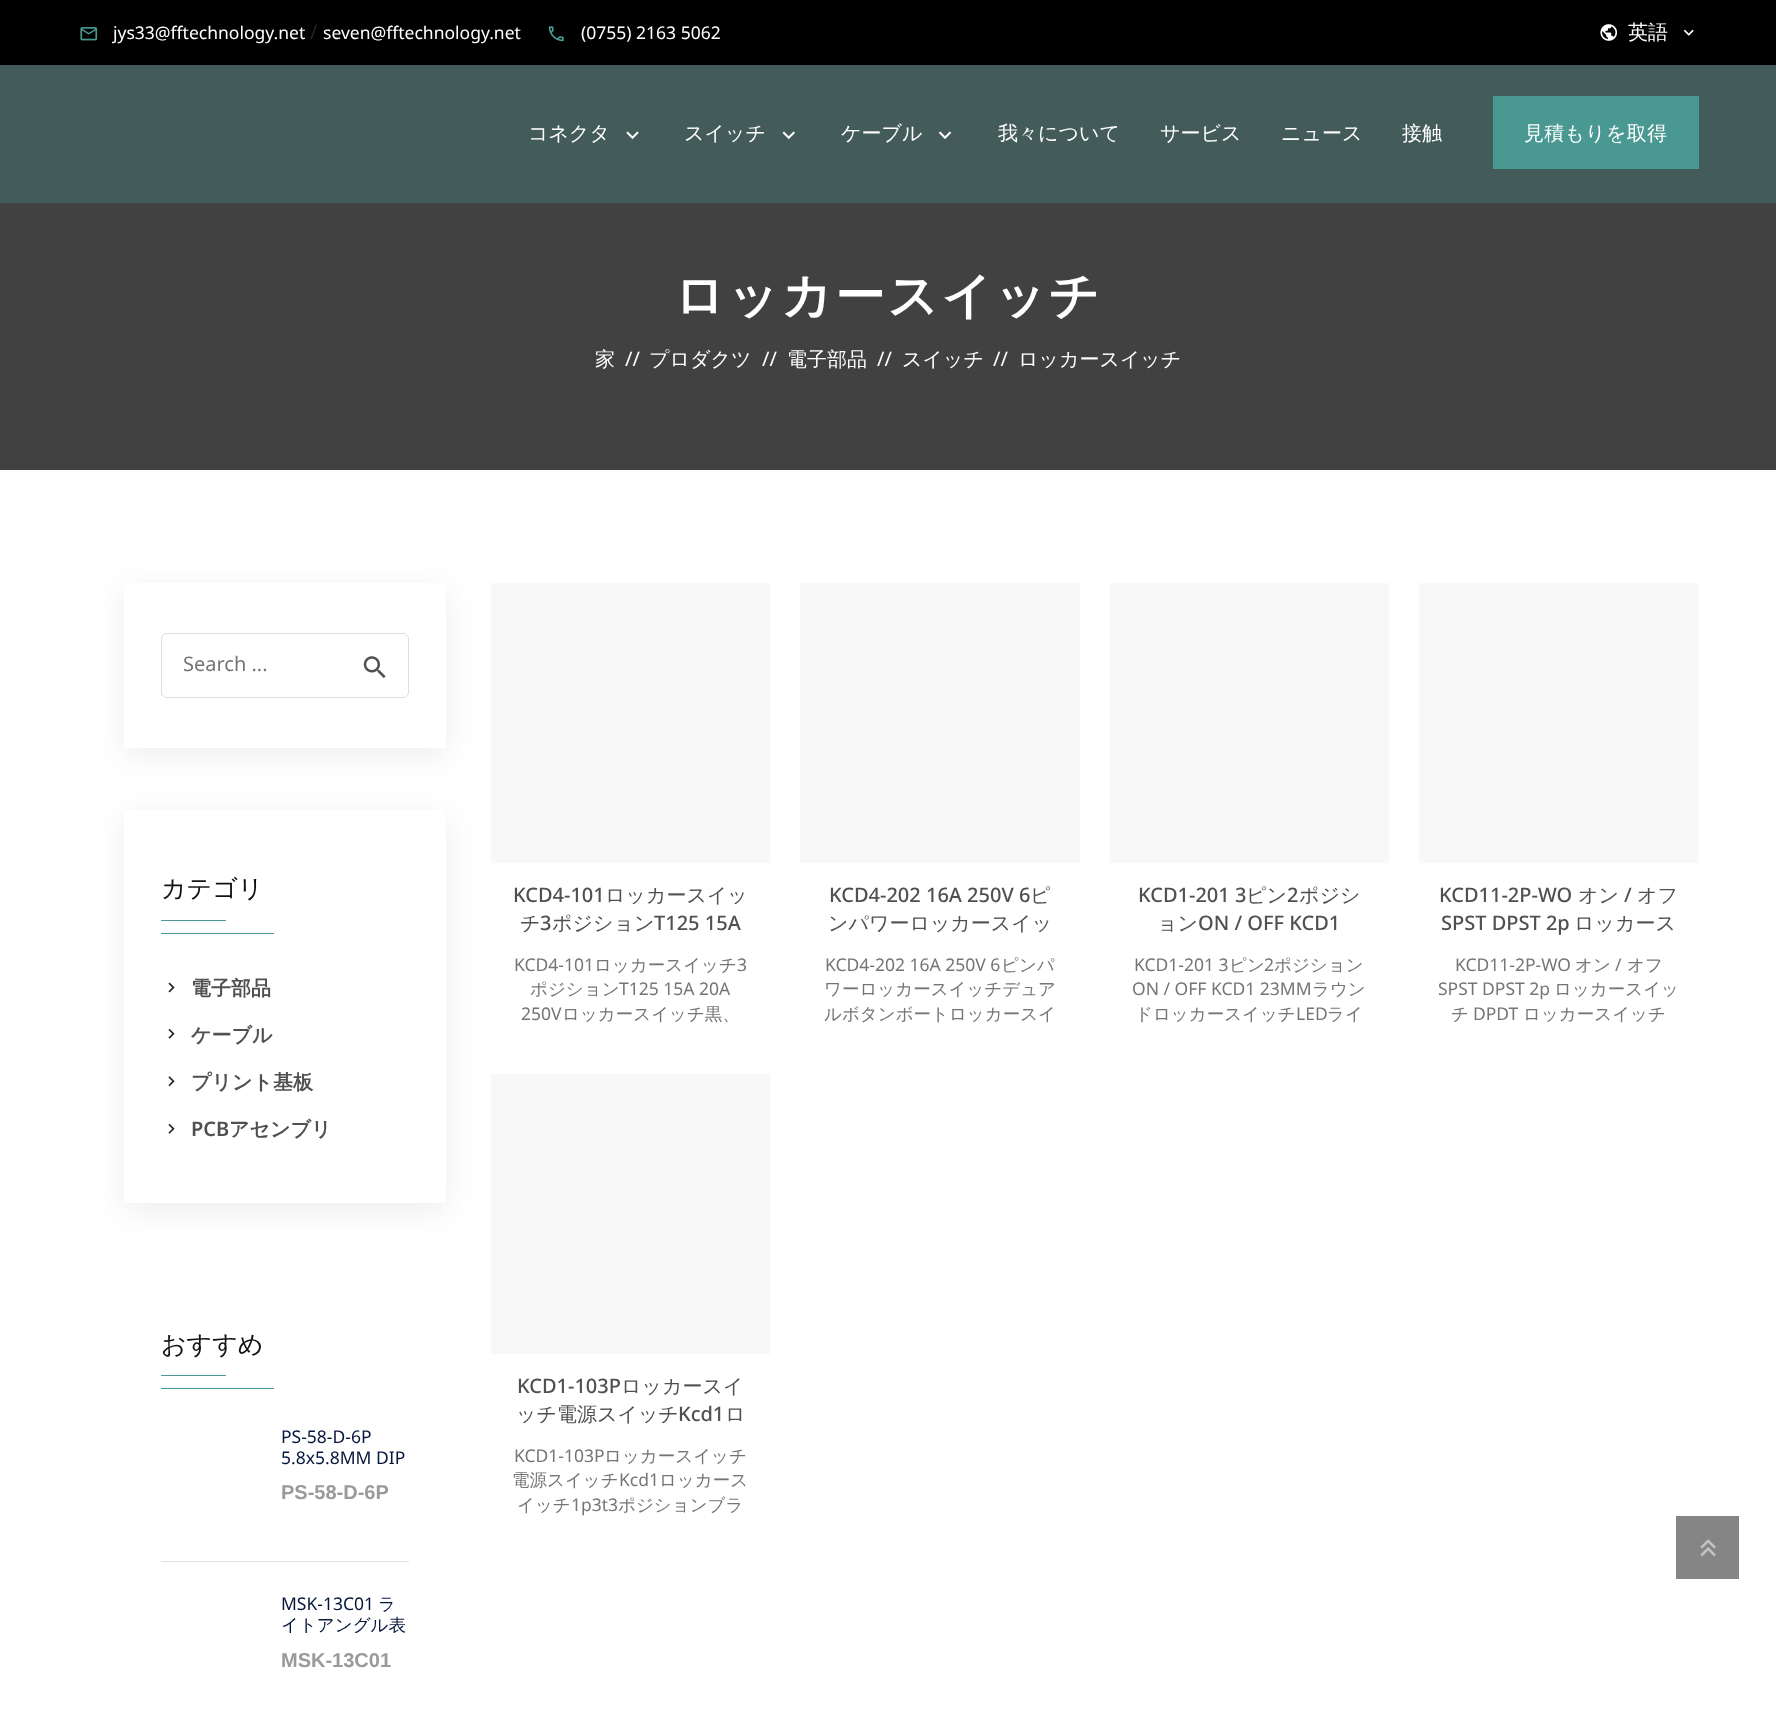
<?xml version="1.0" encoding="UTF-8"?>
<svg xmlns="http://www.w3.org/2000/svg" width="1776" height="1728">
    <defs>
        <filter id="blur1" x="-50%" y="-200%" width="200%" height="500%"><feGaussianBlur stdDeviation="15.5"/></filter>
        <clipPath id="clip1"><rect x="281" y="1588" width="128" height="45"/></clipPath>
    </defs>
    <rect width="100%" height="100%" fill="#FFFFFF"/>
    <rect x="0" y="0" width="1776" height="65" fill="#000000"/>
    <image x="80" y="27" width="18" height="14" href="img_01.png"/>
    <text x="113" y="39" font-family="Noto Sans" font-size="17.5" fill="#FFFFFF">jys33@fftechnology.net</text>
    <text x="310" y="39" font-family="Noto Sans" font-size="20" fill="#212529">/</text>
    <text x="323" y="39" font-family="Noto Sans" font-size="17.5" fill="#FFFFFF">seven@fftechnology.net</text>
    <image x="548" y="26" width="16" height="16" href="img_02.png"/>
    <text x="581" y="39" font-family="Noto Sans" font-size="17.5" fill="#FFFFFF">(0755) 2163 5062</text>
    <image x="1600" y="24" width="18" height="17" href="img_03.png"/>
    <text x="1628" y="39" font-family="WenQuanYi Zen Hei" font-size="20" font-weight="500" fill="#FFFFFF">英語</text>
    <image x="1683" y="29" width="11" height="7" href="img_04.png"/>
    <rect x="0" y="65" width="1776" height="138" fill="#435B59"/>
    <text x="528" y="140" font-family="WenQuanYi Zen Hei" font-size="20" font-weight="500" fill="#FFFFFF">コネクタ</text>
    <image x="626" y="131" width="13" height="9" href="img_05.png"/>
    <text x="684" y="140" font-family="WenQuanYi Zen Hei" font-size="20" font-weight="500" fill="#FFFFFF">スイッチ</text>
    <image x="782" y="131" width="13" height="9" href="img_06.png"/>
    <text x="841" y="140" font-family="WenQuanYi Zen Hei" font-size="20" font-weight="500" fill="#FFFFFF">ケーブル</text>
    <image x="938" y="131" width="14" height="8" href="img_07.png"/>
    <text x="998" y="140" font-family="WenQuanYi Zen Hei" font-size="20" font-weight="500" fill="#FFFFFF">我々について</text>
    <text x="1160" y="140" font-family="WenQuanYi Zen Hei" font-size="20" font-weight="500" fill="#FFFFFF">サービス</text>
    <text x="1281" y="140" font-family="WenQuanYi Zen Hei" font-size="20" font-weight="500" fill="#FFFFFF">ニュース</text>
    <text x="1402" y="140" font-family="WenQuanYi Zen Hei" font-size="20" font-weight="500" fill="#FFFFFF">接触</text>
    <rect x="1493" y="96" width="206" height="73" fill="#499892"/>
    <text x="1524" y="140" font-family="WenQuanYi Zen Hei" font-size="20" font-weight="500" letter-spacing="0.25" fill="#FFFFFF">見積もりを取得</text>
    <rect x="0" y="203" width="1776" height="267" fill="#414141"/>
    <text x="674" y="313" font-family="WenQuanYi Zen Hei" font-size="50" font-weight="700" letter-spacing="2.5" fill="#FFFFFF">ロッカースイッチ</text>
    <text x="595" y="366" font-family="WenQuanYi Zen Hei" font-size="20" font-weight="500" fill="#FFFFFF">家</text>
    <text x="625" y="366" font-family="Noto Sans" font-size="20" fill="#FFFFFF">//</text>
    <text x="649" y="366" font-family="WenQuanYi Zen Hei" font-size="20" font-weight="500" fill="#FFFFFF">プロダクツ</text>
    <text x="762" y="366" font-family="Noto Sans" font-size="20" fill="#FFFFFF">//</text>
    <text x="787" y="366" font-family="WenQuanYi Zen Hei" font-size="20" font-weight="500" fill="#FFFFFF">電子部品</text>
    <text x="877" y="366" font-family="Noto Sans" font-size="20" fill="#FFFFFF">//</text>
    <text x="902" y="366" font-family="WenQuanYi Zen Hei" font-size="20" font-weight="500" fill="#FFFFFF">スイッチ</text>
    <text x="993" y="366" font-family="Noto Sans" font-size="20" fill="#FFFFFF">//</text>
    <text x="1018" y="366" font-family="WenQuanYi Zen Hei" font-size="20" font-weight="500" fill="#FFFFFF">ロッカースイッチ</text>
    <rect x="124" y="590" width="322" height="165" fill="#000000" fill-opacity="0.07" filter="url(#blur1)"/>
    <rect x="124" y="583" width="322" height="165" fill="#FFFFFF"/>
    <rect x="161.5" y="633.5" width="247" height="64" rx="5.5" fill="none" stroke="#DDDDDD"/>
    <text x="183" y="671" font-family="Noto Sans" font-size="20" fill="#757575">Search ...</text>
    <image x="363" y="656" width="23" height="22" href="img_08.png"/>
    <rect x="124" y="818" width="322" height="392" fill="#000000" fill-opacity="0.07" filter="url(#blur1)"/>
    <rect x="124" y="810" width="322" height="393" fill="#FFFFFF"/>
    <text x="161" y="897" font-family="WenQuanYi Zen Hei" font-size="25" font-weight="500" fill="#111111">カテゴリ</text>
    <rect x="161" y="933" width="113" height="1" fill="#499892"/>
    <rect x="161" y="920" width="65" height="1" fill="#499892"/>
    <image x="168" y="982" width="7" height="11" href="img_09.png"/>
    <text x="191" y="995" font-family="WenQuanYi Zen Hei" font-size="20" font-weight="700" fill="#505050">電子部品</text>
    <image x="168" y="1028" width="7" height="11" href="img_10.png"/>
    <text x="191" y="1042" font-family="WenQuanYi Zen Hei" font-size="20" font-weight="700" fill="#505050">ケーブル</text>
    <image x="168" y="1076" width="7" height="11" href="img_11.png"/>
    <text x="191" y="1089" font-family="WenQuanYi Zen Hei" font-size="20" font-weight="700" fill="#505050">プリント基板</text>
    <image x="168" y="1123" width="7" height="11" href="img_10.png"/>
    <text x="191" y="1136" font-family="Noto Sans" font-size="20" font-weight="600" fill="#505050">PCB</text>
    <text x="229" y="1136" font-family="WenQuanYi Zen Hei" font-size="20" font-weight="700" fill="#505050">アセンブリ</text>
    <text x="161" y="1353" font-family="WenQuanYi Zen Hei" font-size="25" font-weight="500" fill="#111111">おすすめ</text>
    <rect x="161" y="1388" width="113" height="1" fill="#499892"/>
    <rect x="161" y="1375" width="65" height="1" fill="#499892"/>
    <rect x="161" y="1561" width="248" height="1" fill="#E1E1E1"/>
    <text font-family="Noto Sans" font-size="17.5" fill="#06163A">
        <tspan x="281" y="1443">PS-58-D-6P</tspan>
        <tspan x="281" y="1464">5.8x5.8MM DIP</tspan>
    </text>
    <text x="281" y="1499" font-family="Liberation Sans" font-size="20" font-weight="700" fill="#9A9A9A">PS-58-D-6P</text>
    <text x="281" y="1610" font-family="Noto Sans" font-size="17.5" fill="#06163A">MSK-13C01</text>
    <text x="378" y="1610" font-family="WenQuanYi Zen Hei" font-size="17.5" font-weight="500" fill="#06163A">ラ</text>
    <g clip-path="url(#clip1)">
        <text x="281" y="1631" font-family="WenQuanYi Zen Hei" font-size="17.5" font-weight="500" fill="#06163A">イトアングル表</text>
    </g>
    <text x="281" y="1667" font-family="Liberation Sans" font-size="20" font-weight="700" fill="#9A9A9A">MSK-13C01</text>
    <rect x="491" y="583" width="279" height="280" fill="#F8F8F8"/>
    <text x="513" y="902" font-family="Noto Sans" font-size="20" font-weight="500" fill="#505050">KCD4-101</text>
    <text x="605" y="902" font-family="WenQuanYi Zen Hei" font-size="20" font-weight="500" fill="#505050">ロッカースイッ</text>
    <text x="520" y="930" font-family="WenQuanYi Zen Hei" font-size="20" font-weight="500" fill="#505050">チ</text>
    <text x="540" y="930" font-family="Noto Sans" font-size="20" font-weight="500" fill="#505050">3</text>
    <text x="552" y="930" font-family="WenQuanYi Zen Hei" font-size="20" font-weight="500" fill="#505050">ポジション</text>
    <text x="654" y="930" font-family="Noto Sans" font-size="20" font-weight="500" fill="#505050">T125 15A</text>
    <text x="514" y="971" font-family="Noto Sans" font-size="17.5" fill="#757575">KCD4-101</text>
    <text x="594" y="971" font-family="WenQuanYi Zen Hei" font-size="17.5" font-weight="500" fill="#757575">ロッカースイッチ</text>
    <text x="737" y="971" font-family="Noto Sans" font-size="17.5" fill="#757575">3</text>
    <text x="530" y="995" font-family="WenQuanYi Zen Hei" font-size="17.5" font-weight="500" fill="#757575">ポジション</text>
    <text x="619" y="995" font-family="Noto Sans" font-size="17.5" fill="#757575">T125 15A 20A</text>
    <text x="521" y="1020" font-family="Noto Sans" font-size="17.5" fill="#757575">250V</text>
    <text x="562" y="1020" font-family="WenQuanYi Zen Hei" font-size="17.5" font-weight="500" fill="#757575">ロッカースイッチ黒、</text>
    <rect x="800" y="583" width="280" height="280" fill="#F8F8F8"/>
    <text x="829" y="902" font-family="Noto Sans" font-size="20" font-weight="500" fill="#505050">KCD4-202 16A 250V 6</text>
    <text x="1030" y="902" font-family="WenQuanYi Zen Hei" font-size="20" font-weight="500" fill="#505050">ピ</text>
    <text x="828" y="930" font-family="WenQuanYi Zen Hei" font-size="20" font-weight="500" fill="#505050">ンパワーロッカースイッ</text>
    <text x="825" y="971" font-family="Noto Sans" font-size="17.5" fill="#757575">KCD4-202 16A 250V 6</text>
    <text x="1001" y="971" font-family="WenQuanYi Zen Hei" font-size="17.5" font-weight="500" fill="#757575">ピンパ</text>
    <text font-family="WenQuanYi Zen Hei" font-size="17.5" font-weight="500" fill="#757575">
        <tspan x="824" y="995">ワーロッカースイッチデュア</tspan>
        <tspan x="824" y="1020">ルボタンボートロッカースイ</tspan>
    </text>
    <rect x="1110" y="583" width="279" height="280" fill="#F8F8F8"/>
    <text x="1138" y="902" font-family="Noto Sans" font-size="20" font-weight="500" fill="#505050">KCD1-201 3</text>
    <text x="1246" y="902" font-family="WenQuanYi Zen Hei" font-size="20" font-weight="500" fill="#505050">ピン</text>
    <text x="1287" y="902" font-family="Noto Sans" font-size="20" font-weight="500" fill="#505050">2</text>
    <text x="1299" y="902" font-family="WenQuanYi Zen Hei" font-size="20" font-weight="500" fill="#505050">ポジシ</text>
    <text x="1157" y="930" font-family="WenQuanYi Zen Hei" font-size="20" font-weight="500" fill="#505050">ョン</text>
    <text x="1198" y="930" font-family="Noto Sans" font-size="20" font-weight="500" fill="#505050">ON / OFF KCD1</text>
    <text x="1134" y="971" font-family="Noto Sans" font-size="17.5" fill="#757575">KCD1-201 3</text>
    <text x="1229" y="971" font-family="WenQuanYi Zen Hei" font-size="17.5" font-weight="500" fill="#757575">ピン</text>
    <text x="1264" y="971" font-family="Noto Sans" font-size="17.5" fill="#757575">2</text>
    <text x="1274" y="971" font-family="WenQuanYi Zen Hei" font-size="17.5" font-weight="500" fill="#757575">ポジション</text>
    <text x="1132" y="995" font-family="Noto Sans" font-size="17.5" fill="#757575">ON / OFF KCD1 23MM</text>
    <text x="1312" y="995" font-family="WenQuanYi Zen Hei" font-size="17.5" font-weight="500" fill="#757575">ラウン</text>
    <text x="1135" y="1020" font-family="WenQuanYi Zen Hei" font-size="17.5" font-weight="500" fill="#757575">ドロッカースイッチ</text>
    <text x="1296" y="1020" font-family="Noto Sans" font-size="17.5" fill="#757575">LED</text>
    <text x="1327" y="1020" font-family="WenQuanYi Zen Hei" font-size="17.5" font-weight="500" fill="#757575">ライ</text>
    <rect x="1419" y="583" width="280" height="280" fill="#F8F8F8"/>
    <text x="1439" y="902" font-family="Noto Sans" font-size="20" font-weight="500" fill="#505050">KCD11-2P-WO</text>
    <text x="1578" y="902" font-family="WenQuanYi Zen Hei" font-size="20" font-weight="500" fill="#505050">オン</text>
    <text x="1624" y="902" font-family="Noto Sans" font-size="20" font-weight="500" fill="#505050">/</text>
    <text x="1637" y="902" font-family="WenQuanYi Zen Hei" font-size="20" font-weight="500" fill="#505050">オフ</text>
    <text x="1441" y="930" font-family="Noto Sans" font-size="20" font-weight="500" fill="#505050">SPST DPST 2p</text>
    <text x="1574" y="930" font-family="WenQuanYi Zen Hei" font-size="20" font-weight="500" fill="#505050">ロッカース</text>
    <text x="1455" y="971" font-family="Noto Sans" font-size="17.5" fill="#757575">KCD11-2P-WO</text>
    <text x="1575" y="971" font-family="WenQuanYi Zen Hei" font-size="17.5" font-weight="500" fill="#757575">オン</text>
    <text x="1615" y="971" font-family="Noto Sans" font-size="17.5" fill="#757575">/</text>
    <text x="1627" y="971" font-family="WenQuanYi Zen Hei" font-size="17.5" font-weight="500" fill="#757575">オフ</text>
    <text x="1438" y="995" font-family="Noto Sans" font-size="17.5" fill="#757575">SPST DPST 2p</text>
    <text x="1554" y="995" font-family="WenQuanYi Zen Hei" font-size="17.5" font-weight="500" fill="#757575">ロッカースイッ</text>
    <text x="1451" y="1020" font-family="WenQuanYi Zen Hei" font-size="17.5" font-weight="500" fill="#757575">チ</text>
    <text x="1473" y="1020" font-family="Noto Sans" font-size="17.5" fill="#757575">DPDT</text>
    <text x="1523" y="1020" font-family="WenQuanYi Zen Hei" font-size="17.5" font-weight="500" fill="#757575">ロッカースイッチ</text>
    <rect x="491" y="1074" width="279" height="280" fill="#F8F8F8"/>
    <text x="517" y="1393" font-family="Noto Sans" font-size="20" font-weight="500" fill="#505050">KCD1-103P</text>
    <text x="621" y="1393" font-family="WenQuanYi Zen Hei" font-size="20" font-weight="500" fill="#505050">ロッカースイ</text>
    <text x="516" y="1421" font-family="WenQuanYi Zen Hei" font-size="20" font-weight="500" fill="#505050">ッチ電源スイッチ</text>
    <text x="678" y="1421" font-family="Noto Sans" font-size="20" font-weight="500" fill="#505050">Kcd1</text>
    <text x="725" y="1421" font-family="WenQuanYi Zen Hei" font-size="20" font-weight="500" fill="#505050">ロ</text>
    <text x="514" y="1462" font-family="Noto Sans" font-size="17.5" fill="#757575">KCD1-103P</text>
    <text x="604" y="1462" font-family="WenQuanYi Zen Hei" font-size="17.5" font-weight="500" fill="#757575">ロッカースイッチ</text>
    <text x="512" y="1486" font-family="WenQuanYi Zen Hei" font-size="17.5" font-weight="500" fill="#757575">電源スイッチ</text>
    <text x="619" y="1486" font-family="Noto Sans" font-size="17.5" fill="#757575">Kcd1</text>
    <text x="659" y="1486" font-family="WenQuanYi Zen Hei" font-size="17.5" font-weight="500" fill="#757575">ロッカース</text>
    <text x="517" y="1511" font-family="WenQuanYi Zen Hei" font-size="17.5" font-weight="500" fill="#757575">イッチ</text>
    <text x="571" y="1511" font-family="Noto Sans" font-size="17.5" fill="#757575">1p3t3</text>
    <text x="618" y="1511" font-family="WenQuanYi Zen Hei" font-size="17.5" font-weight="500" fill="#757575">ポジションブラ</text>
    <rect x="1676" y="1516" width="63" height="63" fill="#858585"/>
    <image x="1700" y="1539" width="16" height="18" href="img_12.png"/>
</svg>
